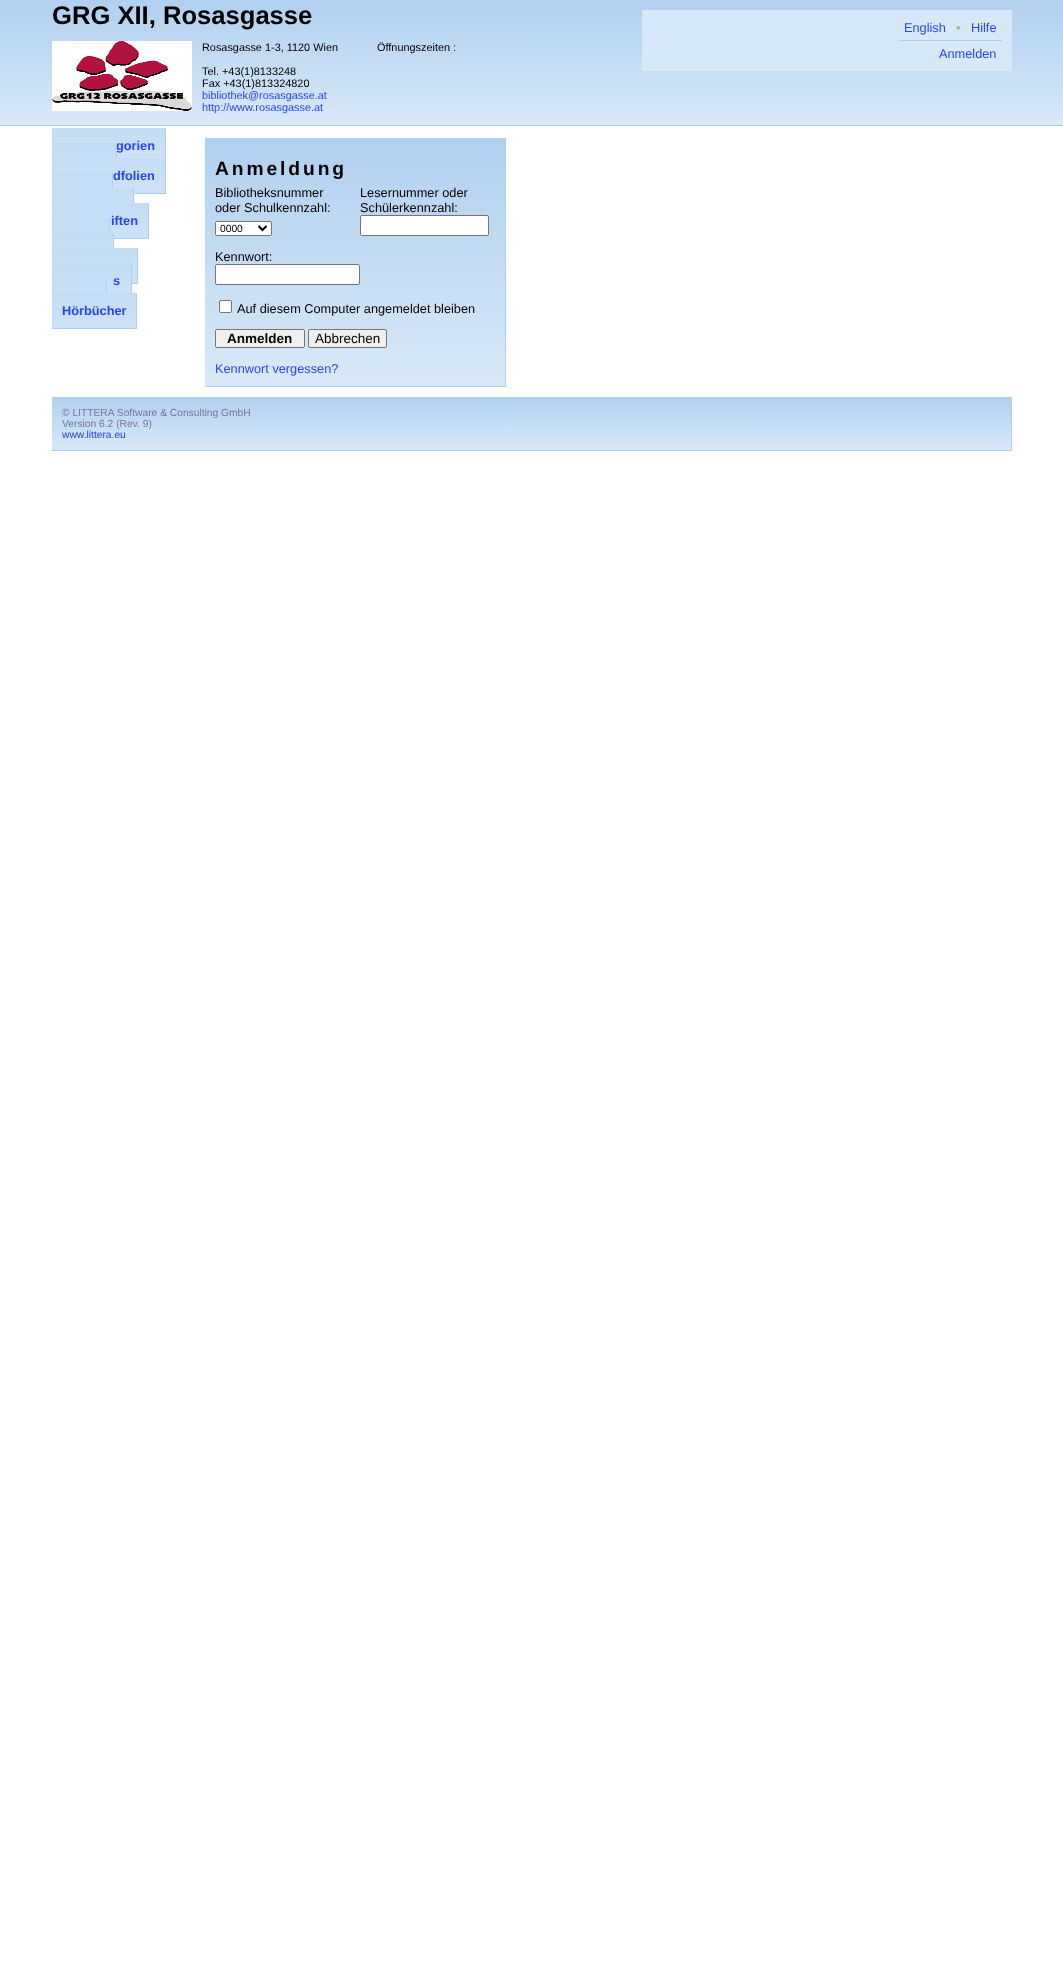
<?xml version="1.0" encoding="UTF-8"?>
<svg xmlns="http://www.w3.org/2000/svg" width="1063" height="1977">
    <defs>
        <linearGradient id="g1" gradientUnits="userSpaceOnUse" x1="532" y1="0" x2="532" y2="125"><stop offset="0" stop-color="#B0D0EF"/><stop offset="1" stop-color="#D9E9F8"/></linearGradient>
        <linearGradient id="g2" gradientUnits="userSpaceOnUse" x1="109" y1="128" x2="109" y2="163"><stop offset="0" stop-color="#C3DDF4"/><stop offset="1" stop-color="#CEE2F6"/></linearGradient>
        <linearGradient id="g3" gradientUnits="userSpaceOnUse" x1="84" y1="143" x2="84" y2="178"><stop offset="0" stop-color="#C3DDF4"/><stop offset="1" stop-color="#CEE2F6"/></linearGradient>
        <linearGradient id="g4" gradientUnits="userSpaceOnUse" x1="109" y1="158" x2="109" y2="193"><stop offset="0" stop-color="#C3DDF4"/><stop offset="1" stop-color="#CEE2F6"/></linearGradient>
        <linearGradient id="g5" gradientUnits="userSpaceOnUse" x1="82" y1="173" x2="82" y2="208"><stop offset="0" stop-color="#C3DDF4"/><stop offset="1" stop-color="#CEE2F6"/></linearGradient>
        <linearGradient id="g6" gradientUnits="userSpaceOnUse" x1="93" y1="188" x2="93" y2="223"><stop offset="0" stop-color="#C3DDF4"/><stop offset="1" stop-color="#CEE2F6"/></linearGradient>
        <linearGradient id="g7" gradientUnits="userSpaceOnUse" x1="100" y1="203" x2="100" y2="238"><stop offset="0" stop-color="#C3DDF4"/><stop offset="1" stop-color="#CEE2F6"/></linearGradient>
        <linearGradient id="g8" gradientUnits="userSpaceOnUse" x1="81" y1="218" x2="81" y2="253"><stop offset="0" stop-color="#C3DDF4"/><stop offset="1" stop-color="#CEE2F6"/></linearGradient>
        <linearGradient id="g9" gradientUnits="userSpaceOnUse" x1="83" y1="233" x2="83" y2="268"><stop offset="0" stop-color="#C3DDF4"/><stop offset="1" stop-color="#CEE2F6"/></linearGradient>
        <linearGradient id="g10" gradientUnits="userSpaceOnUse" x1="95" y1="248" x2="95" y2="283"><stop offset="0" stop-color="#C3DDF4"/><stop offset="1" stop-color="#CEE2F6"/></linearGradient>
        <linearGradient id="g11" gradientUnits="userSpaceOnUse" x1="92" y1="263" x2="92" y2="298"><stop offset="0" stop-color="#C3DDF4"/><stop offset="1" stop-color="#CEE2F6"/></linearGradient>
        <linearGradient id="g12" gradientUnits="userSpaceOnUse" x1="79" y1="278" x2="79" y2="313"><stop offset="0" stop-color="#C3DDF4"/><stop offset="1" stop-color="#CEE2F6"/></linearGradient>
        <linearGradient id="g13" gradientUnits="userSpaceOnUse" x1="94" y1="293" x2="94" y2="328"><stop offset="0" stop-color="#C3DDF4"/><stop offset="1" stop-color="#CEE2F6"/></linearGradient>
        <linearGradient id="g14" gradientUnits="userSpaceOnUse" x1="355" y1="138" x2="355" y2="386"><stop offset="0" stop-color="#B0D0EF"/><stop offset="1" stop-color="#D9E9F8"/></linearGradient>
        <linearGradient id="g15" gradientUnits="userSpaceOnUse" x1="532" y1="397" x2="532" y2="450"><stop offset="0" stop-color="#B0D0EF"/><stop offset="1" stop-color="#D9E9F8"/></linearGradient>
    </defs>
    <rect width="100%" height="100%" fill="#FFFFFF"/>
    <rect x="0" y="0" width="1063" height="125" fill="url(#g1)"/>
    <rect x="0" y="125" width="1063" height="1" fill="#ACD0EF"/>
    <text x="52" y="24" font-family="Liberation Sans" font-size="25.6" font-weight="700" fill="#000000">GRG XII, Rosasgasse</text>
    <image x="52" y="41" width="140" height="70" href="img_01.png"/>
    <text x="202" y="51" font-family="Liberation Sans" font-size="10.9" fill="#000000">Rosasgasse 1-3, 1120 Wien</text>
    <text font-family="Liberation Sans" font-size="10.9" fill="#000000">
        <tspan x="202" y="75">Tel. +43(1)8133248</tspan>
        <tspan x="202" y="87">Fax +43(1)813324820</tspan>
    </text>
    <text font-family="Liberation Sans" font-size="10.9" fill="#2745F9">
        <tspan x="202" y="99">bibliothek@rosasgasse.at</tspan>
        <tspan x="202" y="111">http://www.rosasgasse.at</tspan>
    </text>
    <text x="377" y="51" font-family="Liberation Sans" font-size="10.9" fill="#000000">Öffnungszeiten :</text>
    <rect x="642" y="10" width="370" height="61" fill="#D7E9F8"/>
    <text x="904" y="32" font-family="Liberation Sans" font-size="12.75" fill="#2745F9">English</text>
    <text x="956" y="32" font-family="Liberation Sans" font-size="12.75" fill="#AAAAAA">•</text>
    <rect x="899" y="40" width="103" height="1" fill="#ACD0EF"/>
    <text x="971" y="32" font-family="Liberation Sans" font-size="12.75" fill="#2745F9">Hilfe</text>
    <text x="939" y="58" font-family="Liberation Sans" font-size="12.75" fill="#2745F9">Anmelden</text>
    <rect x="52" y="128" width="113" height="30" fill="url(#g2)"/>
    <rect x="52" y="143" width="64" height="15" fill="url(#g3)"/>
    <text x="116" y="150" font-family="Liberation Sans" font-size="12.75" font-weight="700" fill="#2745F9">gorien</text>
    <rect x="116" y="143" width="1" height="15" fill="#ACD0EF"/>
    <rect x="165" y="128" width="1" height="66" fill="#ACD0EF"/>
    <rect x="52" y="158" width="113" height="35" fill="url(#g4)"/>
    <rect x="52" y="173" width="60" height="15" fill="url(#g5)"/>
    <rect x="112" y="173" width="1" height="15" fill="#ACD0EF"/>
    <text x="113" y="180" font-family="Liberation Sans" font-size="12.75" font-weight="700" fill="#2745F9">dfolien</text>
    <rect x="134" y="193" width="32" height="1" fill="#ACD0EF"/>
    <rect x="52" y="188" width="81" height="15" fill="url(#g6)"/>
    <rect x="133" y="188" width="1" height="15" fill="#ACD0EF"/>
    <rect x="52" y="203" width="96" height="35" fill="url(#g7)"/>
    <rect x="52" y="218" width="57" height="15" fill="url(#g8)"/>
    <rect x="109" y="218" width="1" height="15" fill="#ACD0EF"/>
    <text x="111" y="225" font-family="Liberation Sans" font-size="12.75" font-weight="700" fill="#2745F9">iften</text>
    <rect x="148" y="203" width="1" height="36" fill="#ACD0EF"/>
    <rect x="114" y="238" width="35" height="1" fill="#ACD0EF"/>
    <rect x="52" y="233" width="61" height="15" fill="url(#g9)"/>
    <rect x="113" y="233" width="1" height="15" fill="#ACD0EF"/>
    <rect x="52" y="248" width="85" height="35" fill="url(#g10)"/>
    <rect x="137" y="248" width="1" height="36" fill="#ACD0EF"/>
    <rect x="132" y="283" width="6" height="1" fill="#ACD0EF"/>
    <rect x="52" y="263" width="79" height="30" fill="url(#g11)"/>
    <rect x="52" y="278" width="54" height="15" fill="url(#g12)"/>
    <rect x="106" y="278" width="1" height="15" fill="#ACD0EF"/>
    <text x="113" y="285" font-family="Liberation Sans" font-size="12.75" font-weight="700" fill="#2745F9">s</text>
    <rect x="131" y="263" width="1" height="36" fill="#ACD0EF"/>
    <rect x="52" y="293" width="84" height="35" fill="url(#g13)"/>
    <text x="62" y="315" font-family="Liberation Sans" font-size="12.75" font-weight="700" fill="#2745F9">Hörbücher</text>
    <rect x="136" y="293" width="1" height="36" fill="#ACD0EF"/>
    <rect x="52" y="328" width="85" height="1" fill="#ACD0EF"/>
    <rect x="205" y="138" width="300" height="248" fill="url(#g14)"/>
    <rect x="505" y="138" width="1" height="249" fill="#ACD0EF"/>
    <rect x="205" y="386" width="301" height="1" fill="#ACD0EF"/>
    <text x="215" y="175" font-family="Liberation Sans" font-size="19.25" font-weight="700" letter-spacing="2.9" fill="#000000">Anmeldung</text>
    <text font-family="Liberation Sans" font-size="12.75" fill="#000000">
        <tspan x="215" y="197">Bibliotheksnummer</tspan>
        <tspan x="215" y="212">oder Schulkennzahl:</tspan>
    </text>
    <text font-family="Liberation Sans" font-size="12.75" fill="#000000">
        <tspan x="360" y="197">Lesernummer oder</tspan>
        <tspan x="360" y="212">Schülerkennzahl:</tspan>
    </text>
    <rect x="215.5" y="221.5" width="56" height="14" rx="1.5" fill="#FFFFFF" stroke="#767676"/>
    <path d="M 258.5 226 L 262.5 230 L 266.5 226" fill="none" stroke="#000000" stroke-width="2"/>
    <text x="220" y="232" font-family="Liberation Sans" font-size="10.25" fill="#000000">0000</text>
    <rect x="360.5" y="215.5" width="128" height="20" rx="1.5" fill="#FFFFFF" stroke="#767676"/>
    <text x="215" y="261" font-family="Liberation Sans" font-size="12.75" fill="#000000">Kennwort:</text>
    <rect x="215.5" y="264.5" width="144" height="20" rx="1.5" fill="#FFFFFF" stroke="#767676"/>
    <rect x="219.5" y="300.5" width="12" height="12" rx="1.5" fill="#FFFFFF" stroke="#767676"/>
    <text x="237" y="313" font-family="Liberation Sans" font-size="12.75" fill="#000000">Auf diesem Computer angemeldet bleiben</text>
    <rect x="215.5" y="329.5" width="89" height="18" rx="1.5" fill="#EFEFEF" stroke="#767676"/>
    <text x="227" y="343" font-family="Liberation Sans" font-size="13.5" font-weight="700" fill="#000000">Anmelden</text>
    <rect x="308.5" y="329.5" width="78" height="18" rx="1.5" fill="#EFEFEF" stroke="#767676"/>
    <text x="315" y="343" font-family="Liberation Sans" font-size="13.5" fill="#000000">Abbrechen</text>
    <text x="215" y="373" font-family="Liberation Sans" font-size="12.75" fill="#2745F9">Kennwort vergessen?</text>
    <rect x="52" y="397" width="959" height="53" fill="url(#g15)"/>
    <rect x="1011" y="397" width="1" height="54" fill="#ACD0EF"/>
    <rect x="52" y="450" width="960" height="1" fill="#ACD0EF"/>
    <text font-family="Liberation Sans" font-size="10.25" fill="#777799">
        <tspan x="62" y="416">© LITTERA Software &amp; Consulting GmbH</tspan>
        <tspan x="62" y="427">Version 6.2 (Rev. 9)</tspan>
    </text>
    <text x="62" y="438" font-family="Liberation Sans" font-size="10.25" fill="#2745F9">www.littera.eu</text>
</svg>
